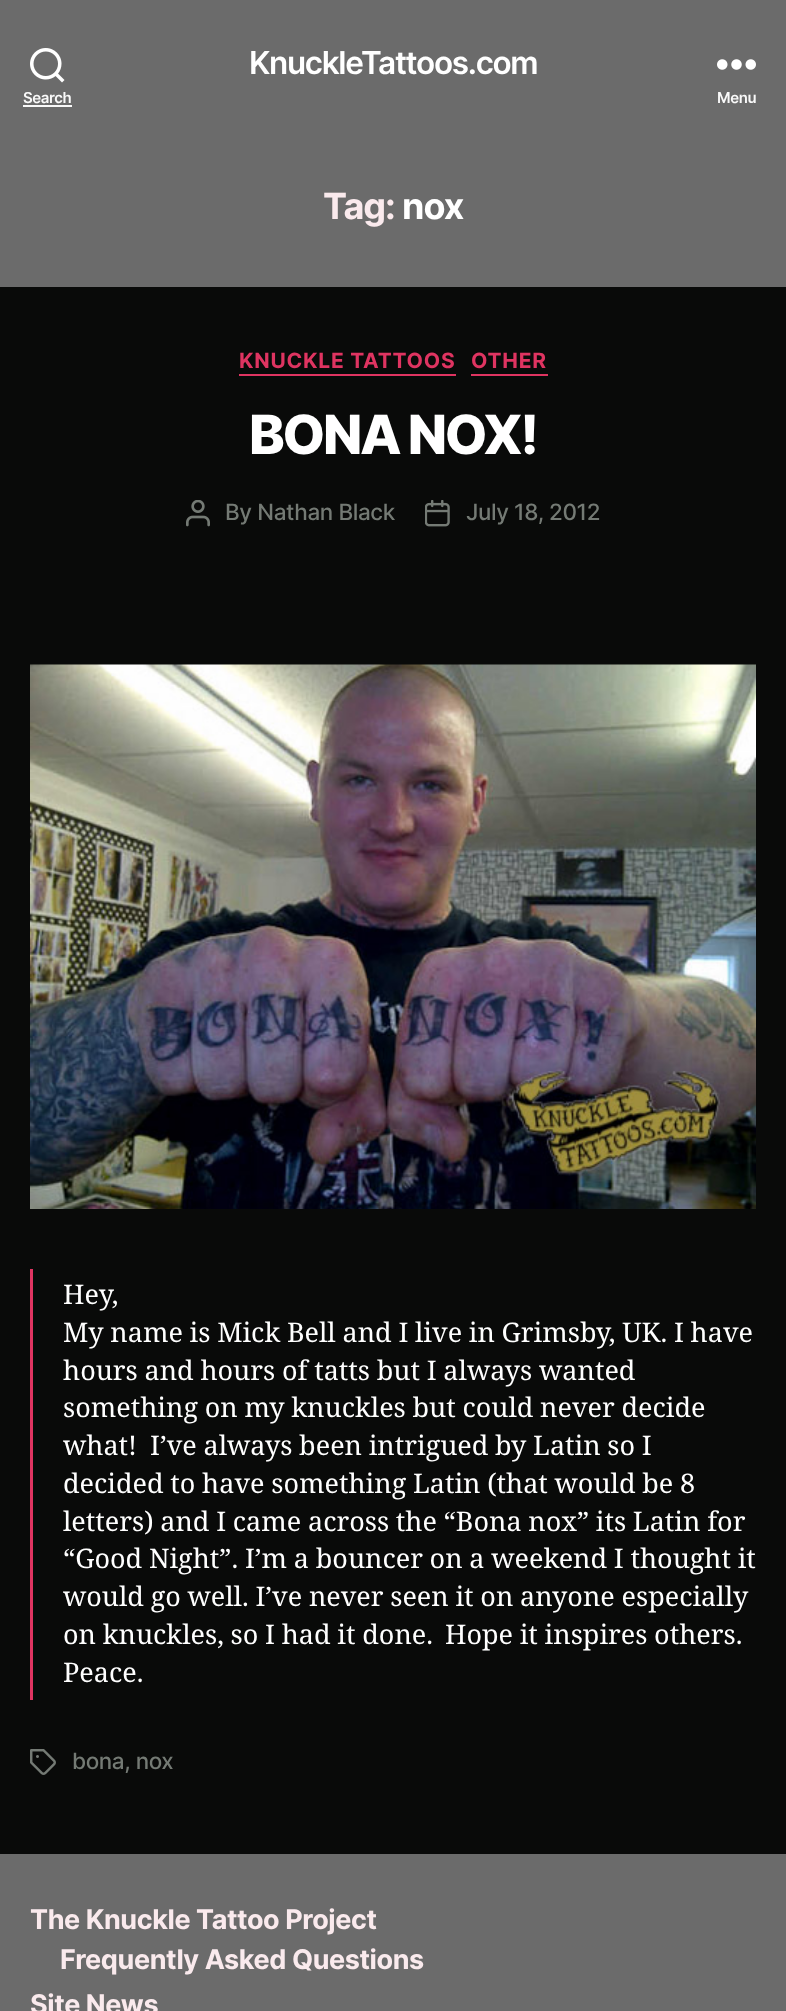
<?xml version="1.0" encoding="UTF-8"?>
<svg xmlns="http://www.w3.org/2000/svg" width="786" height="2011">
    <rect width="100%" height="100%" fill="#090A09"/>
    <rect x="0" y="0" width="786" height="287" fill="#6B6B6B"/>
    <text x="249" y="74" font-family="Inter" font-size="31.5" font-weight="600" letter-spacing="-1.3" fill="#FFFFFF">KnuckleTattoos.com</text>
    <image x="30" y="48" width="35" height="35" href="img_01.png"/>
    <text x="23" y="103" font-family="Inter" font-size="15" font-weight="600" letter-spacing="-0.4" fill="#F9F9F9">Search</text>
    <rect x="23" y="105" width="49" height="2" fill="#F9F9F9"/>
    <image x="717" y="59" width="39" height="11" href="img_02.png"/>
    <text x="717" y="103" font-family="Inter" font-size="15" font-weight="600" letter-spacing="-0.4" fill="#F9F9F9">Menu</text>
    <text x="323" y="219" font-family="Inter" font-size="36" font-weight="700" letter-spacing="-1" fill="#FAEAED">Tag:</text>
    <text x="402" y="219" font-family="Inter" font-size="36" font-weight="700" letter-spacing="-1" fill="#FFFFFF">nox</text>
    <rect x="239" y="374" width="217" height="2" fill="#DF3461"/>
    <text x="239" y="368" font-family="Inter" font-size="21" font-weight="700" letter-spacing="0.75" fill="#DF3461">KNUCKLE TATTOOS</text>
    <rect x="471" y="374" width="77" height="2" fill="#DF3461"/>
    <text x="471" y="368" font-family="Inter" font-size="21" font-weight="700" letter-spacing="0.75" fill="#DF3461">OTHER</text>
    <text x="249" y="454" font-family="Inter" font-size="54" font-weight="800" letter-spacing="-2.25" fill="#FFFFFF">BONA NOX!</text>
    <image x="186" y="500" width="24" height="27" href="img_03.png"/>
    <text x="225" y="520" font-family="Inter" font-size="22.5" font-weight="500" letter-spacing="-0.4" fill="#747A74">By Nathan Black</text>
    <image x="425" y="500" width="25" height="27" href="img_04.png"/>
    <text x="466" y="520" font-family="Inter" font-size="22.5" font-weight="500" letter-spacing="-0.4" fill="#747A74">July 18, 2012</text>
    <image x="30" y="664" width="726" height="545" href="img_05.png"/>
    <rect x="30" y="1269" width="3" height="431" fill="#DF3461"/>
    <text font-family="Noto Serif" font-size="27" fill="#FFFFFF">
        <tspan x="63" y="1304">Hey,</tspan>
        <tspan x="63" y="1342" word-spacing="-0.3">My name is Mick Bell and I live in Grimsby, UK. I have</tspan>
        <tspan x="63" y="1380" word-spacing="-0.3">hours and hours of tatts but I always wanted</tspan>
        <tspan x="63" y="1417" word-spacing="-0.3">something on my knuckles but could never decide</tspan>
        <tspan x="63" y="1455">what!</tspan>
    </text>
    <text x="150" y="1455" word-spacing="-0.3" font-family="Noto Serif" font-size="27" fill="#FFFFFF">I’ve always been intrigued by Latin so I</text>
    <text font-family="Noto Serif" font-size="27" fill="#FFFFFF">
        <tspan x="63" y="1493" word-spacing="-0.3">decided to have something Latin (that would be 8</tspan>
        <tspan x="63" y="1531" word-spacing="-0.3">letters) and I came across the “Bona nox” its Latin for</tspan>
        <tspan x="63" y="1568" word-spacing="-0.3">“Good Night”. I’m a bouncer on a weekend I thought it</tspan>
        <tspan x="63" y="1606" word-spacing="-0.3">would go well. I’ve never seen it on anyone especially</tspan>
        <tspan x="63" y="1644" word-spacing="-0.3">on knuckles, so I had it done.</tspan>
    </text>
    <text x="445" y="1644" word-spacing="-0.3" font-family="Noto Serif" font-size="27" fill="#FFFFFF">Hope it inspires others.</text>
    <text x="63" y="1682" font-family="Noto Serif" font-size="27" fill="#FFFFFF">Peace.</text>
    <image x="30" y="1749" width="26" height="26" href="img_06.png"/>
    <text x="72" y="1769" font-family="Inter" font-size="22.5" font-weight="500" letter-spacing="-0.4" fill="#747A74">bona, nox</text>
    <rect x="0" y="1854" width="786" height="157" fill="#6B6B6B"/>
    <text x="30" y="1929" font-family="Inter" font-size="27" font-weight="700" letter-spacing="-0.4" fill="#FAEAED">The Knuckle Tattoo Project</text>
    <text x="60" y="1969" font-family="Inter" font-size="27" font-weight="700" letter-spacing="-0.4" fill="#FAEAED">Frequently Asked Questions</text>
    <text x="30" y="2014" font-family="Inter" font-size="27" font-weight="700" letter-spacing="-0.4" fill="#FAEAED">Site News</text>
</svg>
